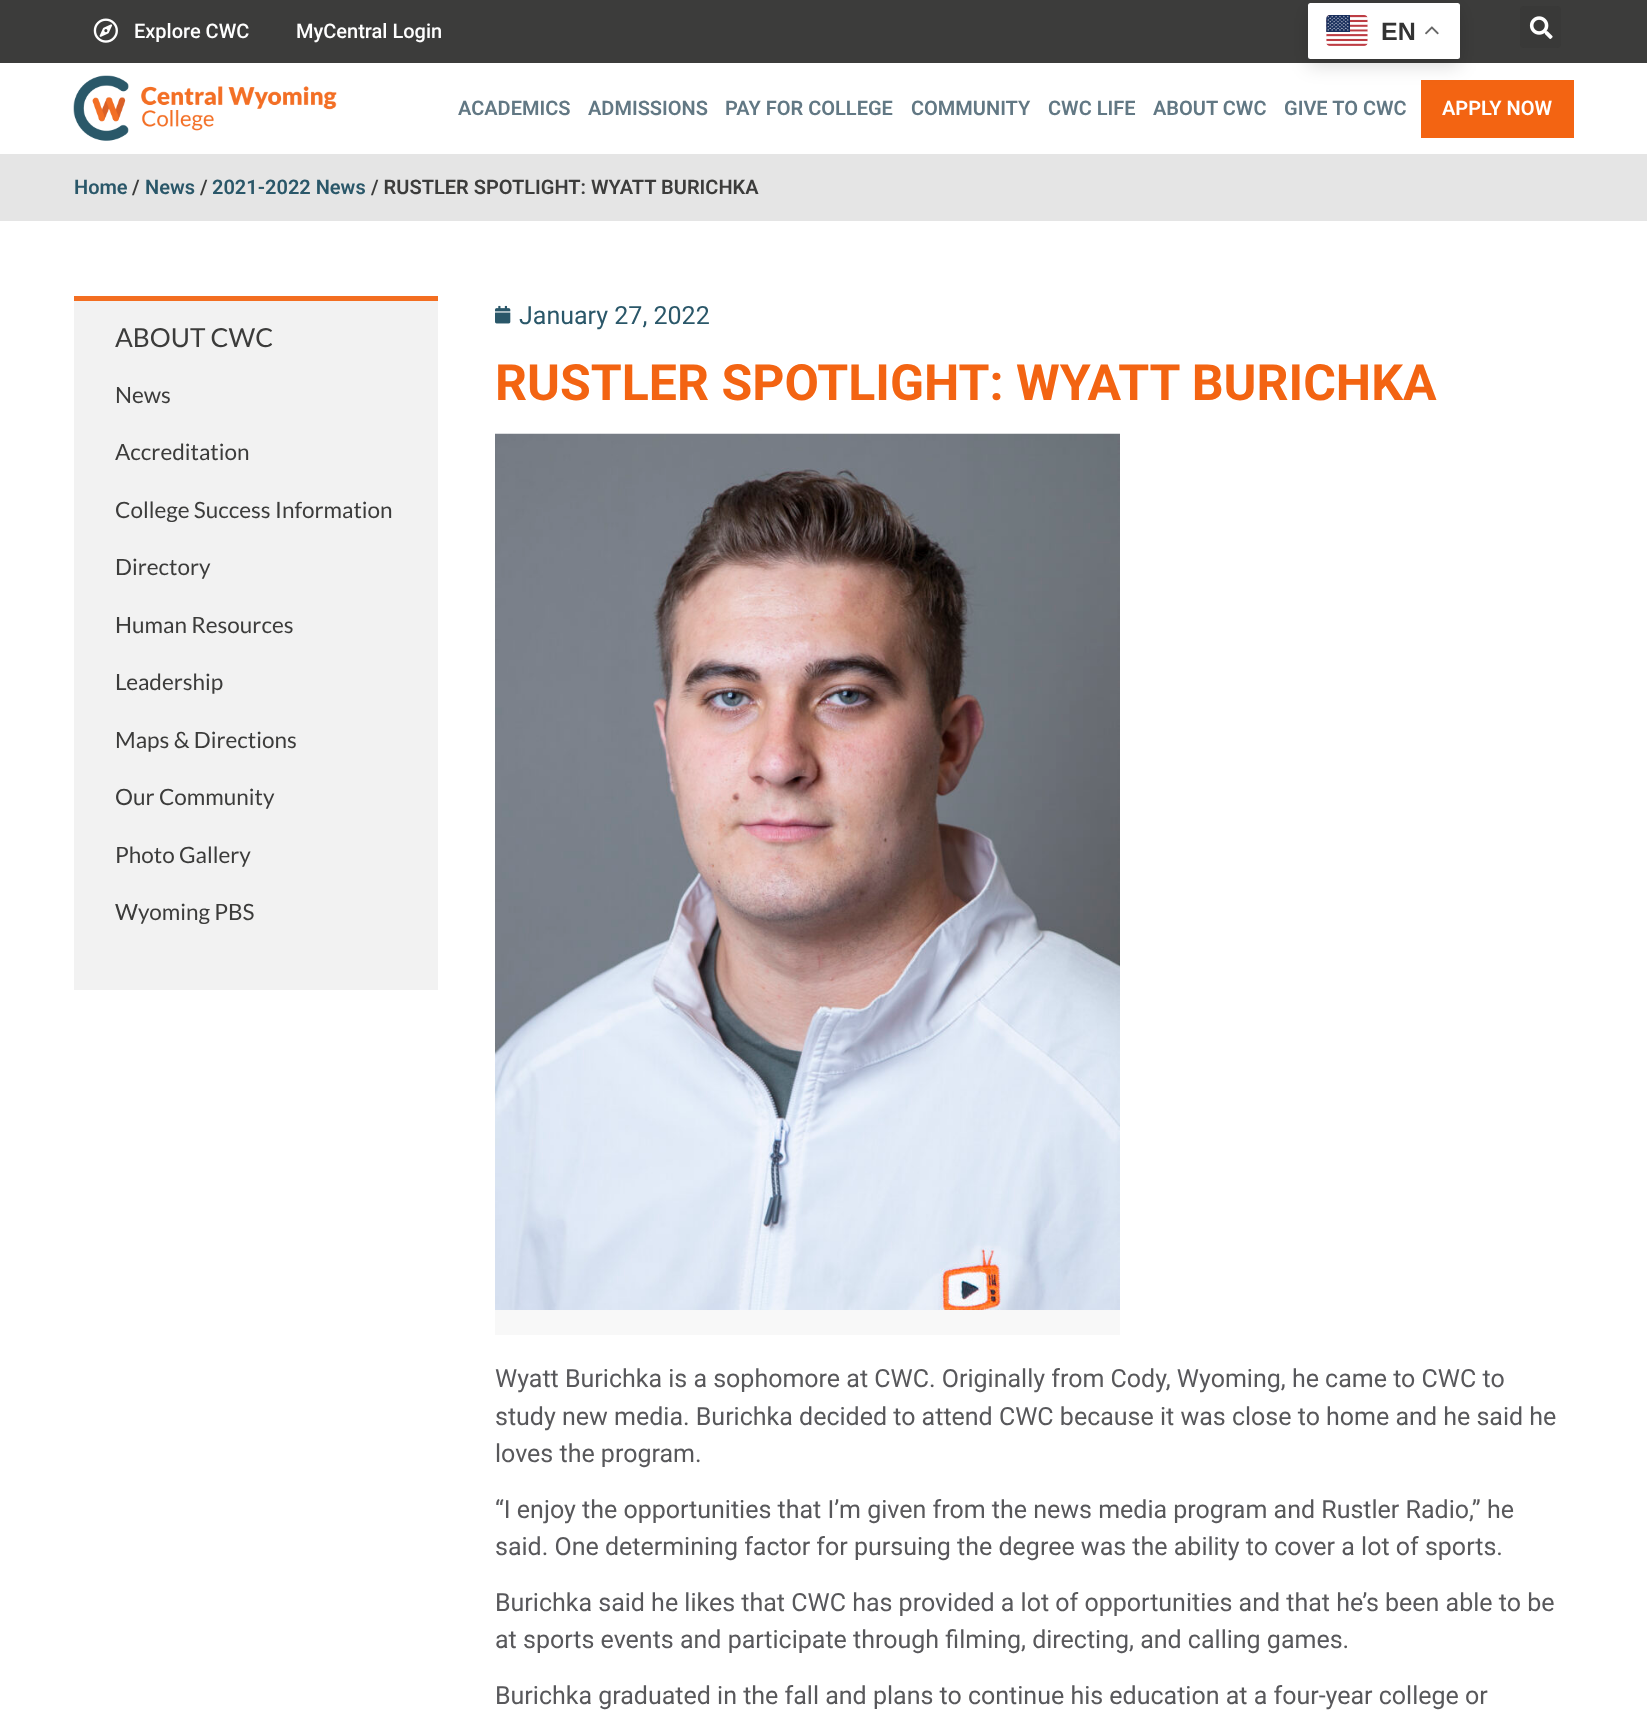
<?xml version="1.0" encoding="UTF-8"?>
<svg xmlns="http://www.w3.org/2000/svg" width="1647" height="1720">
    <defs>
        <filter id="blur1" x="-50%" y="-200%" width="200%" height="500%"><feGaussianBlur stdDeviation="9.5"/></filter>
    </defs>
    <rect width="100%" height="100%" fill="#FFFFFF"/>
    <rect x="0" y="0" width="1647" height="63" fill="#3C3C3B"/>
    <rect x="1421" y="80" width="153" height="58" fill="#F36412"/>
    <rect x="1308" y="9" width="152" height="56" rx="2.5" fill="#000000" fill-opacity="0.15" filter="url(#blur1)"/>
    <rect x="1308" y="3" width="152" height="56" rx="2.5" fill="#FFFFFF"/>
    <image x="1326" y="15" width="42" height="31" href="img_01.png"/>
    <text x="1381" y="40" font-family="Liberation Sans" font-size="25" font-weight="700" fill="#333333">EN</text>
    <image x="1425" y="26" width="14" height="9" href="img_02.png"/>
    <image x="93" y="18" width="25" height="25" href="img_03.png"/>
    <text x="134" y="38" font-family="Roboto" font-size="20" font-weight="500" fill="#FFFFFF">Explore CWC</text>
    <text x="296" y="38" font-family="Roboto" font-size="20" font-weight="500" fill="#FFFFFF">MyCentral Login</text>
    <rect x="1520" y="6" width="41" height="42" rx="4" fill="#393938"/>
    <image x="1529" y="16" width="24" height="23" href="img_04.png"/>
    <image x="73" y="75" width="264" height="66" href="img_05.png"/>
    <text x="458" y="115" font-family="Roboto" font-size="20" font-weight="600" fill="#627884">ACADEMICS</text>
    <text x="588" y="115" font-family="Roboto" font-size="20" font-weight="600" fill="#627884">ADMISSIONS</text>
    <text x="725" y="115" font-family="Roboto" font-size="20" font-weight="600" fill="#627884">PAY FOR COLLEGE</text>
    <text x="911" y="115" font-family="Roboto" font-size="20" font-weight="600" fill="#627884">COMMUNITY</text>
    <text x="1048" y="115" font-family="Roboto" font-size="20" font-weight="600" fill="#627884">CWC LIFE</text>
    <text x="1153" y="115" font-family="Roboto" font-size="20" font-weight="600" fill="#627884">ABOUT CWC</text>
    <text x="1284" y="115" font-family="Roboto" font-size="20" font-weight="600" fill="#627884">GIVE TO CWC</text>
    <text x="1442" y="115" font-family="Roboto" font-size="20" font-weight="600" fill="#FFFFFF">APPLY NOW</text>
    <rect x="0" y="154" width="1647" height="67" fill="#E5E5E5"/>
    <text x="74" y="194" font-family="Roboto" font-size="20" font-weight="600" fill="#2A5769">Home</text>
    <text x="132" y="194" font-family="Roboto" font-size="20" font-weight="600" fill="#3C3C3B">/</text>
    <text x="145" y="194" font-family="Roboto" font-size="20" font-weight="600" fill="#2A5769">News</text>
    <text x="200" y="194" font-family="Roboto" font-size="20" font-weight="600" fill="#3C3C3B">/</text>
    <text x="212" y="194" font-family="Roboto" font-size="20" font-weight="600" fill="#2A5769">2021-2022 News</text>
    <text x="371" y="194" font-family="Roboto" font-size="20" font-weight="600" fill="#3C3C3B">/ RUSTLER SPOTLIGHT: WYATT BURICHKA</text>
    <rect x="74" y="301" width="364" height="689" fill="#F2F2F2"/>
    <rect x="74" y="296" width="364" height="5" fill="#F36E21"/>
    <text x="115" y="347" font-family="Lato" font-size="26.25" fill="#3C3C3B">ABOUT CWC</text>
    <text x="115" y="403" font-family="Lato" font-size="22.5" fill="#3C3C3B">News</text>
    <text x="115" y="460" font-family="Lato" font-size="22.5" fill="#3C3C3B">Accreditation</text>
    <text x="115" y="518" font-family="Lato" font-size="22.5" fill="#3C3C3B">College Success Information</text>
    <text x="115" y="575" font-family="Lato" font-size="22.5" fill="#3C3C3B">Directory</text>
    <text x="115" y="633" font-family="Lato" font-size="22.5" fill="#3C3C3B">Human Resources</text>
    <text x="115" y="690" font-family="Lato" font-size="22.5" fill="#3C3C3B">Leadership</text>
    <text x="115" y="748" font-family="Lato" font-size="22.5" fill="#3C3C3B">Maps &amp; Directions</text>
    <text x="115" y="805" font-family="Lato" font-size="22.5" fill="#3C3C3B">Our Community</text>
    <text x="115" y="863" font-family="Lato" font-size="22.5" fill="#3C3C3B">Photo Gallery</text>
    <text x="115" y="920" font-family="Lato" font-size="22.5" fill="#3C3C3B">Wyoming PBS</text>
    <image x="495" y="305" width="16" height="19" href="img_06.png"/>
    <text x="519" y="324" font-family="Roboto" font-size="25" fill="#2A5769">January 27, 2022</text>
    <text x="495" y="400" font-family="Roboto" font-size="50" font-weight="700" fill="#F36412">RUSTLER SPOTLIGHT: WYATT BURICHKA</text>
    <image x="495" y="433" width="625" height="877" href="img_07.png"/>
    <rect x="495" y="1310" width="625" height="25" fill="#F8F8F8"/>
    <text font-family="Roboto" font-size="25" fill="#58585B">
        <tspan x="495" y="1387">Wyatt Burichka is a sophomore at CWC. Originally from Cody, Wyoming, he came to CWC to</tspan>
        <tspan x="495" y="1425">study new media. Burichka decided to attend CWC because it was close to home and he said he</tspan>
        <tspan x="495" y="1462">loves the program.</tspan>
    </text>
    <text font-family="Roboto" font-size="25" fill="#58585B">
        <tspan x="495" y="1518">“I enjoy the opportunities that I’m given from the news media program and Rustler Radio,” he</tspan>
        <tspan x="495" y="1555">said. One determining factor for pursuing the degree was the ability to cover a lot of sports.</tspan>
    </text>
    <text font-family="Roboto" font-size="25" fill="#58585B">
        <tspan x="495" y="1611">Burichka said he likes that CWC has provided a lot of opportunities and that he’s been able to be</tspan>
        <tspan x="495" y="1648">at sports events and participate through filming, directing, and calling games.</tspan>
    </text>
    <text x="495" y="1704" font-family="Roboto" font-size="25" fill="#58585B">Burichka graduated in the fall and plans to continue his education at a four-year college or</text>
</svg>
